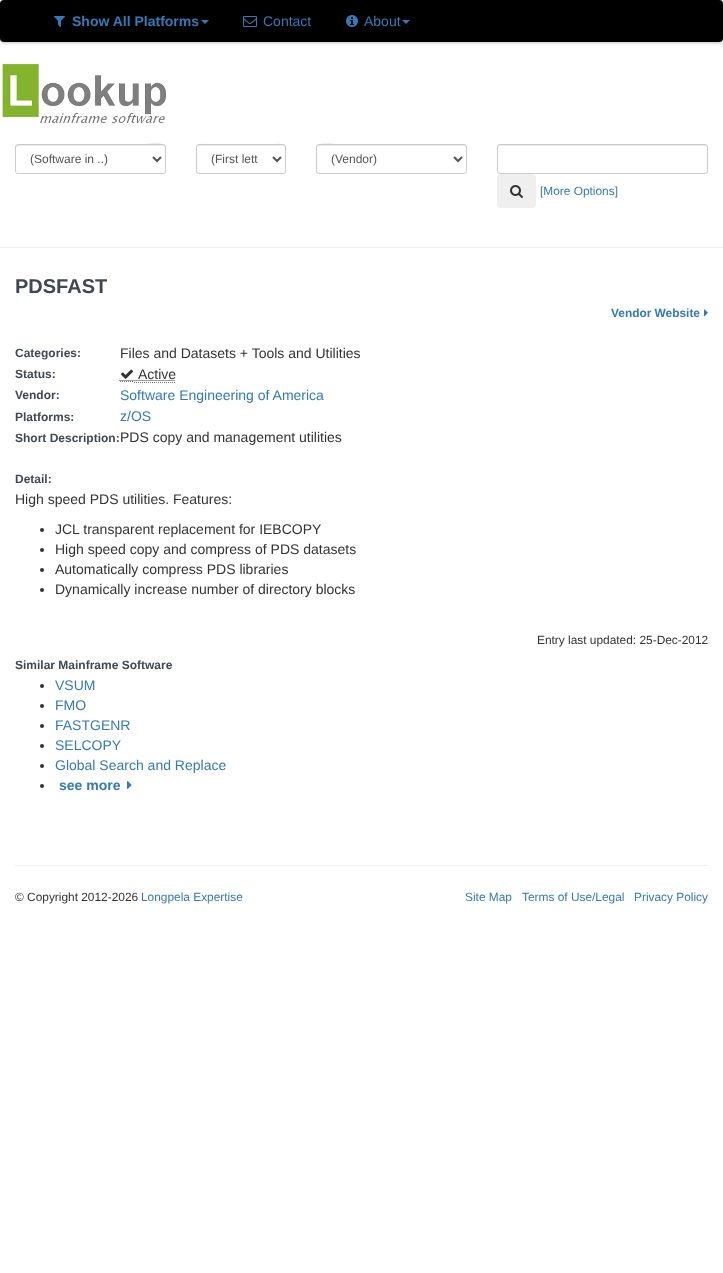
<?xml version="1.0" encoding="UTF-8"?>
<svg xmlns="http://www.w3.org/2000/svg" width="723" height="1273">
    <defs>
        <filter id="blur1" x="-50%" y="-200%" width="200%" height="500%"><feGaussianBlur stdDeviation="1.5"/></filter>
    </defs>
    <rect width="100%" height="100%" fill="#FFFFFF"/>
    <rect x="0" y="1" width="723" height="42" rx="4" fill="#000000" fill-opacity="0.25" filter="url(#blur1)"/>
    <rect x="0" y="0" width="723" height="42" rx="4" fill="#000000"/>
    <image x="54" y="16" width="11" height="11" href="img_01.png"/>
    <text x="72" y="26" font-family="Liberation Sans" font-size="14" font-weight="700" fill="#337AB7">Show All Platforms</text>
    <path d="M 201 20 H 209 L 205 24 Z" fill="#337AB7"/>
    <image x="243" y="16" width="14" height="11" href="img_02.png"/>
    <text x="263" y="26" font-family="Liberation Sans" font-size="14" fill="#337AB7">Contact</text>
    <image x="346" y="15" width="12" height="12" href="img_03.png"/>
    <text x="364" y="26" font-family="Liberation Sans" font-size="14" fill="#337AB7">About</text>
    <path d="M 402 20 H 410 L 406 24 Z" fill="#337AB7"/>
    <image x="2" y="64" width="164" height="59" href="img_04.png"/>
    <path d="M 18 146 H 163 C 164 146 165 147 165 148 C 165 139 142 145 139 145 H 17 C 16 146 16 147 16 148 C 16 147 17 146 18 146 Z" fill="#ECECEC"/>
    <rect x="15.5" y="144.5" width="150" height="29" rx="2.5" fill="none" stroke="#CCCCCC"/>
    <path d="M 153 157 L 157 161 L 161 157" fill="none" stroke="#555555" stroke-width="2"/>
    <text x="30" y="163" font-family="Liberation Sans" font-size="12" fill="#555555">(Software in ..)</text>
    <path d="M 199 146 H 283 C 284 146 285 147 285 148 C 285 141 271 145 269 145 H 213 C 211 145 197 141 197 148 C 197 147 198 146 199 146 Z" fill="#ECECEC"/>
    <rect x="196.5" y="144.5" width="89" height="29" rx="2.5" fill="none" stroke="#CCCCCC"/>
    <path d="M 273 157 L 277 161 L 281 157" fill="none" stroke="#555555" stroke-width="2"/>
    <text x="211" y="163" font-family="Liberation Sans" font-size="12" fill="#555555">(First lett</text>
    <path d="M 319 146 H 464 C 465 146 466 147 466 148 C 466 147 466 146 465 145 H 343 C 340 145 317 139 317 148 C 317 147 318 146 319 146 Z" fill="#ECECEC"/>
    <rect x="316.5" y="144.5" width="150" height="29" rx="2.5" fill="none" stroke="#CCCCCC"/>
    <path d="M 454 157 L 458 161 L 462 157" fill="none" stroke="#555555" stroke-width="2"/>
    <text x="331" y="163" font-family="Liberation Sans" font-size="12" fill="#555555">(Vendor)</text>
    <path d="M 500 146 H 705 L 707 147 V 148 C 707 147 707 145 705 145 H 500 C 498 145 498 147 498 148 C 498 147 499 146 500 146 Z" fill="#ECECEC"/>
    <rect x="497.5" y="144.5" width="210" height="29" rx="2.5" fill="none" stroke="#CCCCCC"/>
    <rect x="497" y="174" width="39" height="34" rx="4" fill="#EFEFEF"/>
    <image x="510" y="185" width="13" height="13" href="img_05.png"/>
    <text x="540" y="195" font-family="Liberation Sans" font-size="11.9" fill="#337AB7">[More Options]</text>
    <rect x="0" y="247" width="723" height="1" fill="#EEEEEE"/>
    <text x="15" y="293" font-family="Liberation Sans" font-size="20" font-weight="700" fill="#404952">PDSFAST</text>
    <text x="611" y="317" font-family="Liberation Sans" font-size="11.9" font-weight="700" fill="#337AB7">Vendor Website</text>
    <image x="704" y="309" width="4" height="8" href="img_06.png"/>
    <text x="15" y="357" font-family="Liberation Sans" font-size="12" font-weight="700" fill="#404952">Categories:</text>
    <text x="120" y="358" font-family="Liberation Sans" font-size="14" fill="#333333">Files and Datasets + Tools and Utilities</text>
    <text x="15" y="378" font-family="Liberation Sans" font-size="12" font-weight="700" fill="#404952">Status:</text>
    <path d="M 120 381.5 H 134 M 134 382.5 H 176" fill="none" stroke="#777777" stroke-dasharray="1 1"/>
    <path d="M 119.5 380.5 H 133.5" fill="none" stroke="#333333" stroke-dasharray="1 1"/>
    <image x="121" y="369" width="12" height="10" href="img_07.png"/>
    <text x="138" y="379" font-family="Liberation Sans" font-size="14" fill="#333333">Active</text>
    <path d="M 133.5 380.5 H 175.5" fill="none" stroke="#333333" stroke-dasharray="1 1"/>
    <text x="15" y="399" font-family="Liberation Sans" font-size="12" font-weight="700" fill="#404952">Vendor:</text>
    <text x="120" y="400" font-family="Liberation Sans" font-size="14" fill="#337AB7">Software Engineering of America</text>
    <text x="15" y="421" font-family="Liberation Sans" font-size="12" font-weight="700" fill="#404952">Platforms:</text>
    <text x="120" y="421" font-family="Liberation Sans" font-size="14" fill="#337AB7">z/OS</text>
    <text x="15" y="442" font-family="Liberation Sans" font-size="12" font-weight="700" fill="#404952">Short Description:</text>
    <text x="120" y="442" font-family="Liberation Sans" font-size="14" fill="#333333">PDS copy and management utilities</text>
    <text x="15" y="483" font-family="Liberation Sans" font-size="12" font-weight="700" fill="#404952">Detail:</text>
    <text x="15" y="504" font-family="Liberation Sans" font-size="14" fill="#333333">High speed PDS utilities. Features:</text>
    <circle cx="42" cy="530" r="2" fill="#333333"/>
    <text x="55" y="534" font-family="Liberation Sans" font-size="14" fill="#333333">JCL transparent replacement for IEBCOPY</text>
    <circle cx="42" cy="550" r="2" fill="#333333"/>
    <text x="55" y="554" font-family="Liberation Sans" font-size="14" fill="#333333">High speed copy and compress of PDS datasets</text>
    <circle cx="42" cy="570" r="2" fill="#333333"/>
    <text x="55" y="574" font-family="Liberation Sans" font-size="14" fill="#333333">Automatically compress PDS libraries</text>
    <circle cx="42" cy="590" r="2" fill="#333333"/>
    <text x="55" y="594" font-family="Liberation Sans" font-size="14" fill="#333333">Dynamically increase number of directory blocks</text>
    <text x="537" y="644" font-family="Liberation Sans" font-size="11.9" fill="#333333">Entry last updated: 25-Dec-2012</text>
    <text x="15" y="669" font-family="Liberation Sans" font-size="12" font-weight="700" fill="#404952">Similar Mainframe Software</text>
    <circle cx="42" cy="686" r="2" fill="#333333"/>
    <text x="55" y="690" font-family="Liberation Sans" font-size="14" fill="#337AB7">VSUM</text>
    <circle cx="42" cy="706" r="2" fill="#333333"/>
    <text x="55" y="710" font-family="Liberation Sans" font-size="14" fill="#337AB7">FMO</text>
    <circle cx="42" cy="726" r="2" fill="#333333"/>
    <text x="55" y="730" font-family="Liberation Sans" font-size="14" fill="#337AB7">FASTGENR</text>
    <circle cx="42" cy="746" r="2" fill="#333333"/>
    <text x="55" y="750" font-family="Liberation Sans" font-size="14" fill="#337AB7">SELCOPY</text>
    <circle cx="42" cy="766" r="2" fill="#333333"/>
    <text x="55" y="770" font-family="Liberation Sans" font-size="14" fill="#337AB7">Global Search and Replace</text>
    <circle cx="42" cy="786" r="2" fill="#333333"/>
    <text x="59" y="790" font-family="Liberation Sans" font-size="14" font-weight="700" fill="#337AB7">see more</text>
    <image x="127" y="781" width="5" height="8" href="img_08.png"/>
    <rect x="15" y="865" width="693" height="1" fill="#EEEEEE"/>
    <text x="15" y="901" font-family="Liberation Sans" font-size="11.9" fill="#333333">© Copyright 2012-2026</text>
    <text x="141" y="901" font-family="Liberation Sans" font-size="11.9" fill="#337AB7">Longpela Expertise</text>
    <text x="465" y="901" font-family="Liberation Sans" font-size="11.9" fill="#337AB7">Site Map</text>
    <text x="522" y="901" font-family="Liberation Sans" font-size="11.9" fill="#337AB7">Terms of Use/Legal</text>
    <text x="634" y="901" font-family="Liberation Sans" font-size="11.9" fill="#337AB7">Privacy Policy</text>
</svg>
